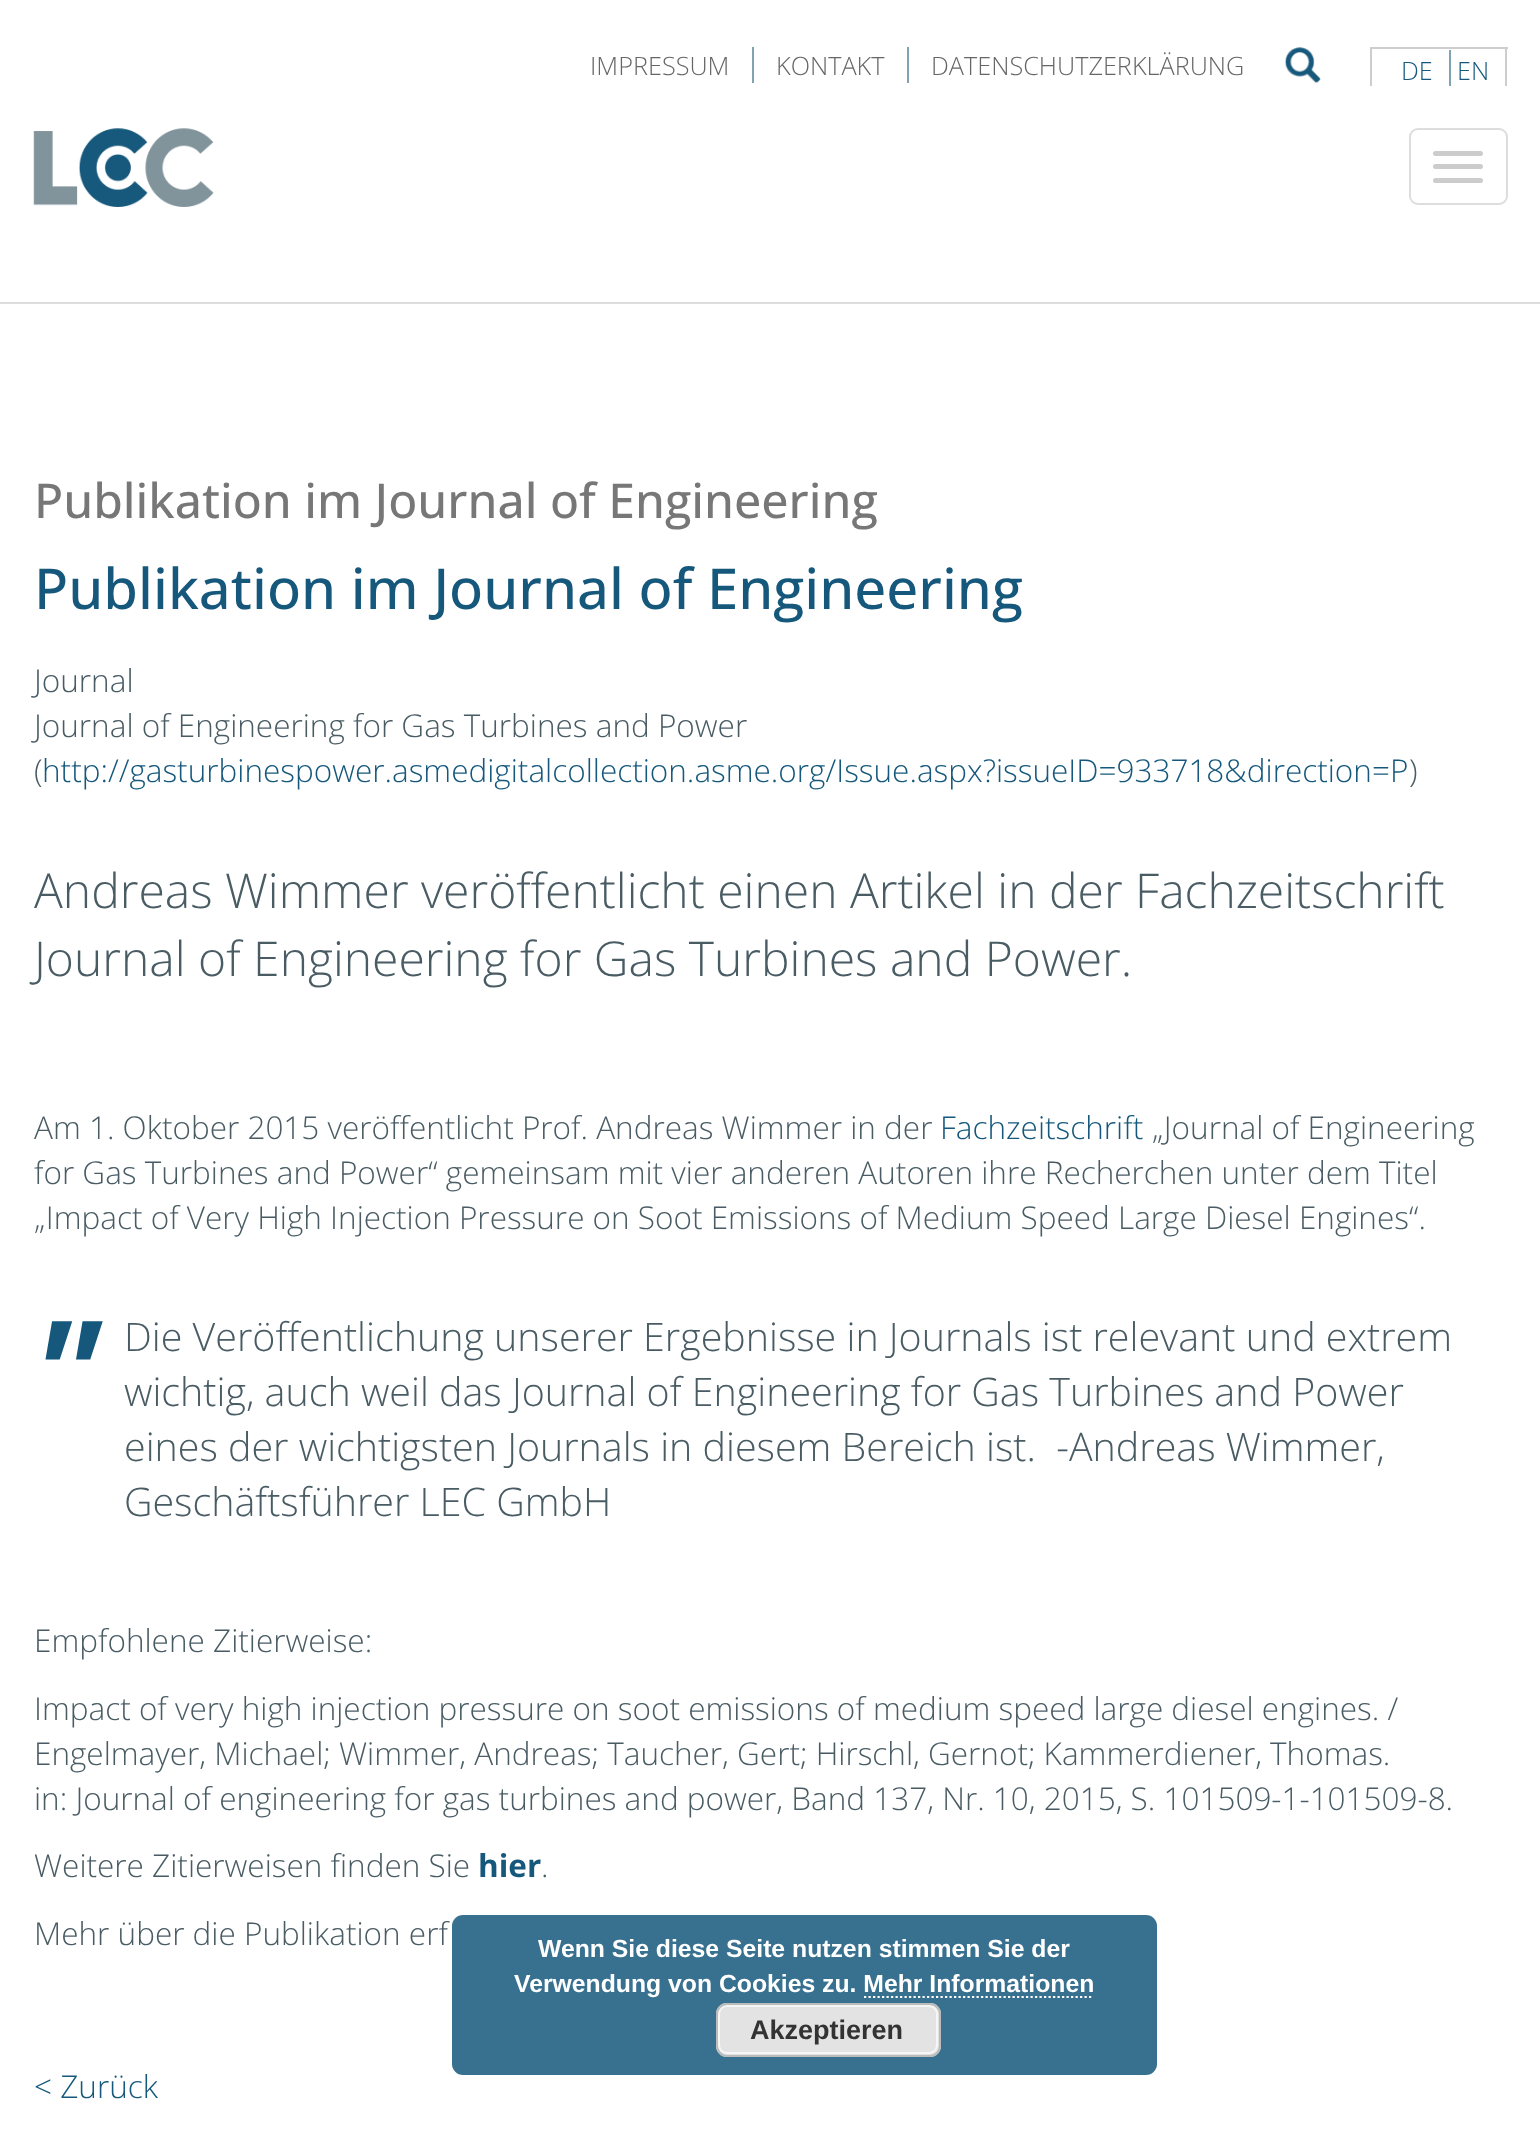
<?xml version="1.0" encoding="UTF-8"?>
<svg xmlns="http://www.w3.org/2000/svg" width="1540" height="2140">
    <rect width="100%" height="100%" fill="#FFFFFF"/>
    <rect x="0" y="302" width="1540" height="2" fill="#DDDDDD"/>
    <rect x="752" y="47" width="2" height="36" fill="#80A3B4"/>
    <text x="590" y="75" font-family="Open Sans" font-size="25.25" font-weight="300" fill="#666666">IMPRESSUM</text>
    <rect x="907" y="47" width="2" height="36" fill="#80A3B4"/>
    <text x="776" y="75" font-family="Open Sans" font-size="25.25" font-weight="300" fill="#666666">KONTAKT</text>
    <text x="931" y="75" font-family="Open Sans" font-size="25.25" font-weight="300" fill="#666666">DATENSCHUTZERKLÄRUNG</text>
    <image x="1285" y="47" width="36" height="36" href="img_01.png"/>
    <rect x="1370" y="47" width="138" height="2" fill="#CDCDCD"/>
    <rect x="1505" y="47" width="2" height="39" fill="#CDCDCD"/>
    <rect x="1370" y="47" width="2" height="39" fill="#CDCDCD"/>
    <rect x="1449" y="50" width="2" height="36" fill="#80A3B4"/>
    <text x="1401" y="80" font-family="Open Sans" font-size="25.25" font-weight="300" fill="#15587C">DE</text>
    <text x="1457" y="80" font-family="Open Sans" font-size="25.25" font-weight="300" fill="#15587C">EN</text>
    <image x="33" y="128" width="181" height="79" href="img_02.png"/>
    <rect x="1410" y="129" width="97" height="75" rx="8" fill="none" stroke="#DDDDDD" stroke-width="2"/>
    <rect x="1433" y="151" width="50" height="5" rx="2.5" fill="#CCCCCC"/>
    <rect x="1433" y="164" width="50" height="5" rx="2.5" fill="#CCCCCC"/>
    <rect x="1433" y="178" width="50" height="5" rx="2.5" fill="#CCCCCC"/>
    <text x="34" y="518" font-family="Open Sans" font-size="48" font-weight="500" fill="#777777">Publikation im Journal of Engineering</text>
    <text x="34" y="609" font-family="Open Sans" font-size="56.25" font-weight="500" fill="#15587C">Publikation im Journal of Engineering</text>
    <text font-family="Open Sans" font-size="31.5" font-weight="300" fill="#495C64">
        <tspan x="34" y="692">Journal</tspan>
        <tspan x="34" y="737">Journal of Engineering for Gas Turbines and Power</tspan>
        <tspan x="34" y="782">(</tspan>
    </text>
    <text x="42" y="782" font-family="Open Sans" font-size="31.5" font-weight="300" fill="#15587C">http://gasturbinespower.asmedigitalcollection.asme.org/Issue.aspx?issueID=933718&amp;direction=P</text>
    <text x="1409" y="782" font-family="Open Sans" font-size="31.5" font-weight="300" fill="#495C64">)</text>
    <text font-family="Open Sans" font-size="48" font-weight="300" fill="#495C64">
        <tspan x="34" y="908">Andreas Wimmer veröffentlicht einen Artikel in der Fachzeitschrift</tspan>
        <tspan x="34" y="976">Journal of Engineering for Gas Turbines and Power.</tspan>
    </text>
    <text x="34" y="1139" font-family="Open Sans" font-size="31.5" font-weight="300" fill="#495C64">Am 1. Oktober 2015 veröffentlicht Prof. Andreas Wimmer in der</text>
    <text x="940" y="1139" font-family="Open Sans" font-size="31.5" font-weight="300" fill="#15587C">Fachzeitschrift</text>
    <text x="1152" y="1139" font-family="Open Sans" font-size="31.5" font-weight="300" fill="#495C64">„Journal of Engineering</text>
    <text font-family="Open Sans" font-size="31.5" font-weight="300" fill="#495C64">
        <tspan x="34" y="1184">for Gas Turbines and Power“ gemeinsam mit vier anderen Autoren ihre Recherchen unter dem Titel</tspan>
        <tspan x="34" y="1229">„Impact of Very High Injection Pressure on Soot Emissions of Medium Speed Large Diesel Engines“.</tspan>
    </text>
    <text x="16" y="1427" font-family="Open Sans" font-size="148" font-weight="700" font-style="italic" fill="#15587C">"</text>
    <text font-family="Open Sans" font-size="39.4" font-weight="300" fill="#495C64" xml:space="preserve"><tspan x="124" y="1351">Die Veröffentlichung unserer Ergebnisse in Journals ist relevant und extrem</tspan><tspan x="124" y="1406">wichtig, auch weil das Journal of Engineering for Gas Turbines and Power</tspan><tspan x="124" y="1461">eines der wichtigsten Journals in diesem Bereich ist.  -Andreas Wimmer,</tspan><tspan x="124" y="1516">Geschäftsführer LEC GmbH</tspan></text>
    <text x="34" y="1652" font-family="Open Sans" font-size="31.5" font-weight="300" fill="#495C64">Empfohlene Zitierweise:</text>
    <text font-family="Open Sans" font-size="31.5" font-weight="300" fill="#495C64">
        <tspan x="34" y="1720">Impact of very high injection pressure on soot emissions of medium speed large diesel engines. /</tspan>
        <tspan x="34" y="1765">Engelmayer, Michael; Wimmer, Andreas; Taucher, Gert; Hirschl, Gernot; Kammerdiener, Thomas.</tspan>
        <tspan x="34" y="1810">in: Journal of engineering for gas turbines and power, Band 137, Nr. 10, 2015, S. 101509-1-101509-8.</tspan>
    </text>
    <text x="34" y="1877" font-family="Open Sans" font-size="31.5" font-weight="300" fill="#495C64">Weitere Zitierweisen finden Sie</text>
    <text x="478" y="1877" font-family="Open Sans" font-size="31.5" font-weight="700" fill="#15587C">hier</text>
    <text x="541" y="1877" font-family="Open Sans" font-size="31.5" font-weight="300" fill="#495C64">.</text>
    <text x="34" y="1945" font-family="Open Sans" font-size="31.5" font-weight="300" fill="#495C64">Mehr über die Publikation erf</text>
    <text x="34" y="2098" font-family="Open Sans" font-size="31.5" font-weight="300" fill="#15587C">&lt; Zurück</text>
    <rect x="452" y="1915" width="705" height="160" rx="11" fill="#15587C" fill-opacity="0.85"/>
    <text x="538" y="1957" font-family="Liberation Sans" font-size="24.75" font-weight="700" fill="#FFFFFF">Wenn Sie diese Seite nutzen stimmen Sie der</text>
    <text x="514" y="1992" font-family="Liberation Sans" font-size="24.75" font-weight="700" fill="#FFFFFF">Verwendung von Cookies zu. Mehr Informationen</text>
    <path d="M 864 1997 H 1093.5" fill="none" stroke="#FFFFFF" stroke-width="2.2" stroke-dasharray="2.25 2.25"/>
    <rect x="716" y="2003" width="225" height="54" rx="11" fill="#E3E3E3"/>
    <rect x="719" y="2006" width="218" height="47" rx="8" fill="none" stroke="#F6F6F6" stroke-width="2"/>
    <rect x="717" y="2004" width="223" height="52" rx="10" fill="none" stroke="#BBBBBB" stroke-width="2"/>
    <text x="750" y="2039" font-family="Liberation Sans" font-size="27" font-weight="700" fill="#333333">Akzeptieren</text>
</svg>
